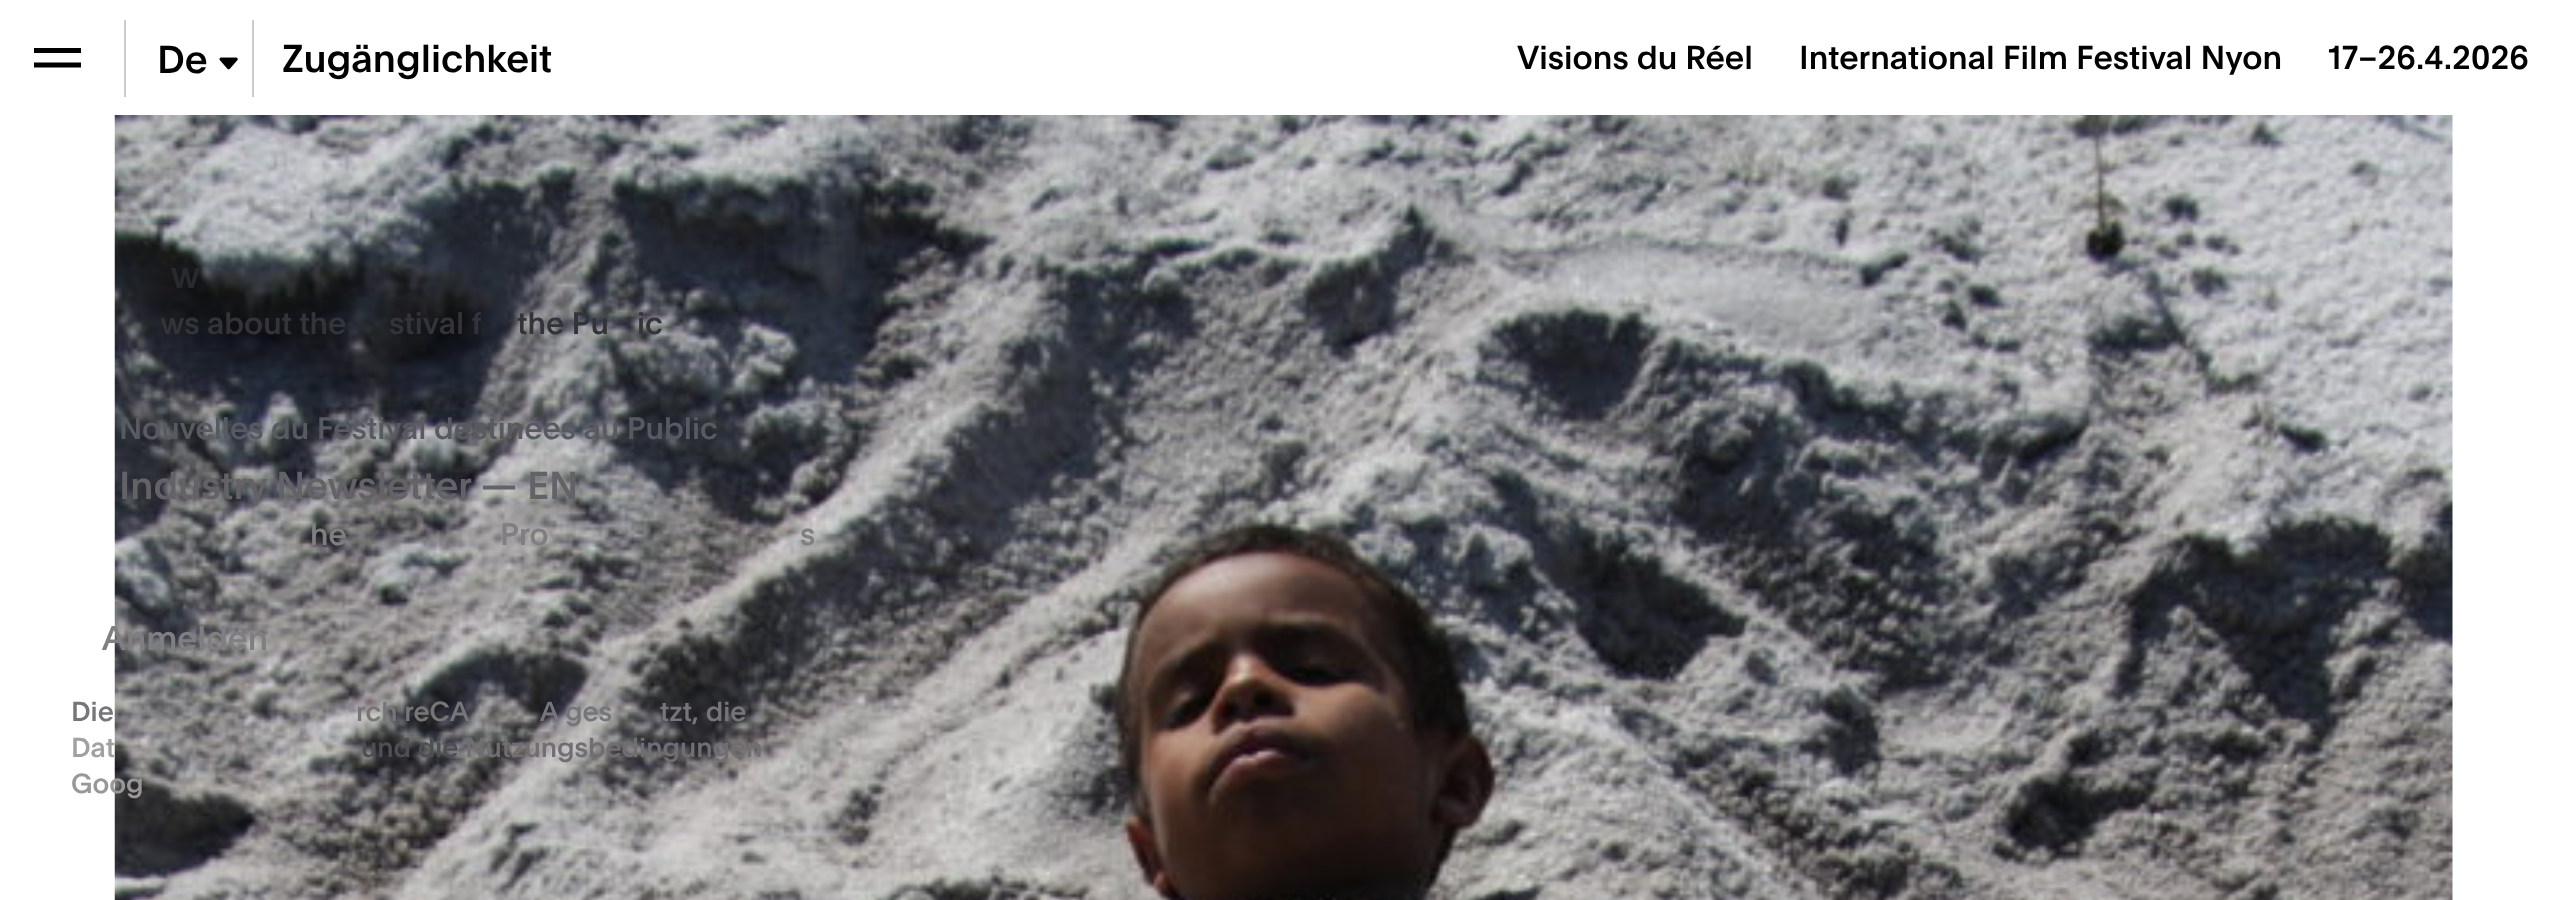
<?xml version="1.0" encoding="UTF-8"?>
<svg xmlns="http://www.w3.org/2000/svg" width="2566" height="900">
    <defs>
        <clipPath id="clip1"><rect x="34" y="34" width="47" height="47"/></clipPath>
    </defs>
    <rect width="100%" height="100%" fill="#FFFFFF"/>
    <g clip-path="url(#clip1)">
        <path d="M 34 50.5 H 81.5 M 34 65 H 81.5" fill="none" stroke="#000000" stroke-width="4.8" stroke-linecap="round"/>
    </g>
    <rect x="124" y="20" width="2" height="77" fill="#CCCCCC"/>
    <text x="157" y="73" font-family="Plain" font-size="38.25" font-weight="600" fill="#000000">De</text>
    <image x="219" y="57" width="19" height="13" href="img_01.png"/>
    <rect x="252" y="20" width="2" height="77" fill="#CCCCCC"/>
    <text x="282" y="72" font-family="Plain" font-size="38.25" font-weight="600" fill="#000000">Zugänglichkeit</text>
    <text x="1517" y="69" font-family="Plain" font-size="32.5" font-weight="600" fill="#000000">Visions du Réel</text>
    <text x="1799" y="69" font-family="Plain" font-size="32.5" font-weight="600" fill="#000000">International Film Festival Nyon</text>
    <text x="2328" y="69" font-family="Plain" font-size="32.5" font-weight="600" fill="#000000">17–26.4.2026</text>
    <image x="114" y="115" width="2339" height="785" href="img_02.png"/>
    <text x="170" y="288" font-family="Plain" font-size="38.25" font-weight="600" fill="#27292E">w</text>
    <text x="160" y="334" font-family="Plain" font-size="30.6" font-weight="600" fill="#33343A">ws about the</text>
    <text x="389" y="334" font-family="Plain" font-size="30.6" font-weight="600" fill="#33343A">stival f</text>
    <text x="517" y="334" font-family="Plain" font-size="30.6" font-weight="600" fill="#33343A">the Pu</text>
    <text x="637" y="334" font-family="Plain" font-size="30.6" font-weight="600" fill="#33343A">ic</text>
    <text x="119" y="439" font-family="Plain" font-size="30.6" font-weight="600" fill="#585A61">Nouvelles du Festival destinées au Public</text>
    <text x="119" y="499" font-family="Plain" font-size="38.25" font-weight="600" fill="#626267">Industry Newsletter — EN</text>
    <text x="310" y="545" font-family="Plain" font-size="30.6" font-weight="600" fill="#7F7E81">he</text>
    <text x="500" y="545" font-family="Plain" font-size="30.6" font-weight="600" fill="#7F7E81">Pro</text>
    <text x="800" y="545" font-family="Plain" font-size="30.6" font-weight="600" fill="#7F7E81">s</text>
    <text x="102" y="650" font-family="Plain" font-size="33.5" font-weight="600" fill="#7F7E81">Anmelden</text>
    <text x="71" y="721" font-family="Plain" font-size="27" font-weight="600" fill="#767679">Die</text>
    <text x="356" y="721" font-family="Plain" font-size="27" font-weight="600" fill="#767679">rch reCA</text>
    <text x="540" y="721" font-family="Plain" font-size="27" font-weight="600" fill="#767679">A ges</text>
    <text x="660" y="721" font-family="Plain" font-size="27" font-weight="600" fill="#767679">tzt, die</text>
    <text x="71" y="757" font-family="Plain" font-size="27" font-weight="600" fill="#A1A1A0">Dat</text>
    <text x="361" y="757" font-family="Plain" font-size="27" font-weight="600" fill="#4E4F52">und die</text>
    <text x="465" y="757" font-family="Plain" font-size="27" font-weight="600" fill="#706E71">Nutzungsbedingungen</text>
    <text x="71" y="793" font-family="Plain" font-size="27" font-weight="600" fill="#999897">Goog</text>
</svg>
